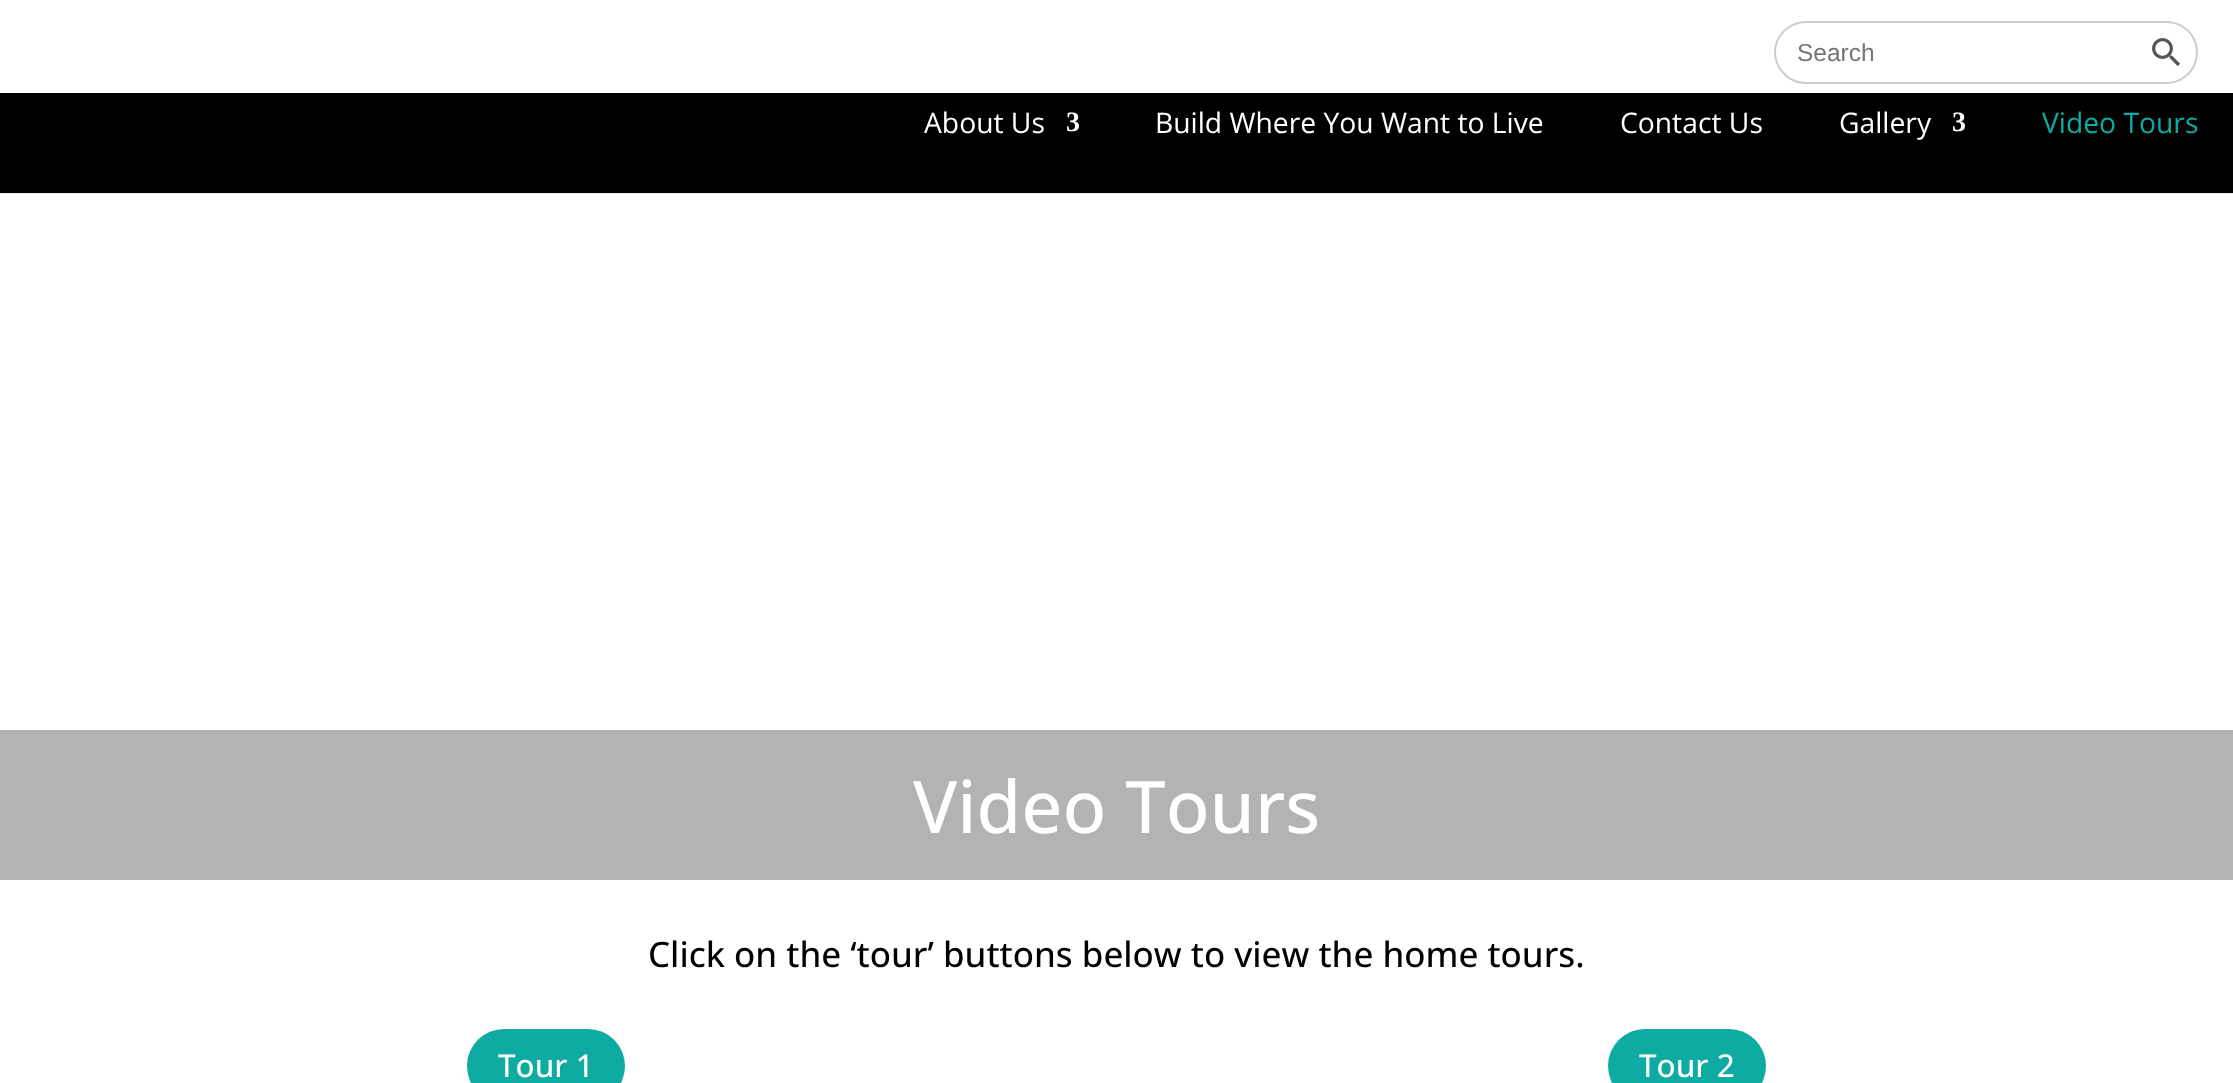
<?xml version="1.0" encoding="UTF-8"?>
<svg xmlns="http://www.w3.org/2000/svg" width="2233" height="1083">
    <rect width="100%" height="100%" fill="#FFFFFF"/>
    <path d="M 1806 21 H 2135 V 84 H 1806 C 1789 84 1774 70 1774 52 C 1774 35 1789 21 1806 21 Z M 1806 23 H 2135 V 82 H 1806 C 1790 82 1776 69 1776 52 C 1776 36 1790 23 1806 23 Z" fill="#CCCCCC" fill-rule="evenodd"/>
    <text x="1797" y="61" font-family="Liberation Sans" font-size="24.5" fill="#757575">Search</text>
    <path d="M 2135 21 H 2166 C 2184 21 2198 35 2198 52 C 2198 70 2184 84 2166 84 H 2135 Z M 2135 23 H 2166 C 2183 23 2196 36 2196 52 C 2196 69 2183 82 2166 82 H 2135 Z" fill="#CCCCCC" fill-rule="evenodd"/>
    <image x="2152" y="38" width="28" height="28" href="img_01.png"/>
    <rect x="0" y="193" width="2233" height="1" fill="#E6E6E6"/>
    <rect x="0" y="93" width="2233" height="100" fill="#000000"/>
    <text x="924" y="133" font-family="Open Sans" font-size="28.25" fill="#FFFFFF">About Us</text>
    <text x="1066" y="131" font-family="Liberation Serif" font-size="28" font-weight="700" fill="#FFFFFF">3</text>
    <text x="1155" y="133" font-family="Open Sans" font-size="28.25" fill="#FFFFFF">Build Where You Want to Live</text>
    <text x="1620" y="133" font-family="Open Sans" font-size="28.25" fill="#FFFFFF">Contact Us</text>
    <text x="1839" y="133" font-family="Open Sans" font-size="28.25" fill="#FFFFFF">Gallery</text>
    <text x="1952" y="131" font-family="Liberation Serif" font-size="28" font-weight="700" fill="#FFFFFF">3</text>
    <text x="2042" y="133" font-family="Open Sans" font-size="28.25" fill="#0DABA2">Video Tours</text>
    <rect x="0" y="730" width="2233" height="150" fill="#B3B3B3"/>
    <text x="913" y="833" font-family="Open Sans" font-size="72.5" font-weight="500" fill="#FFFFFF">Video Tours</text>
    <text x="648" y="967" font-family="Open Sans" font-size="35" font-weight="500" fill="#000000">Click on the ‘tour’ buttons below to view the home tours.</text>
    <rect x="467" y="1029" width="158" height="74" rx="37" fill="#0DABA2"/>
    <text x="498" y="1077" font-family="Open Sans" font-size="31.5" font-weight="500" fill="#FFFFFF">Tour 1</text>
    <rect x="1608" y="1029" width="158" height="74" rx="37" fill="#0DABA2"/>
    <text x="1639" y="1077" font-family="Open Sans" font-size="31.5" font-weight="500" fill="#FFFFFF">Tour 2</text>
</svg>
